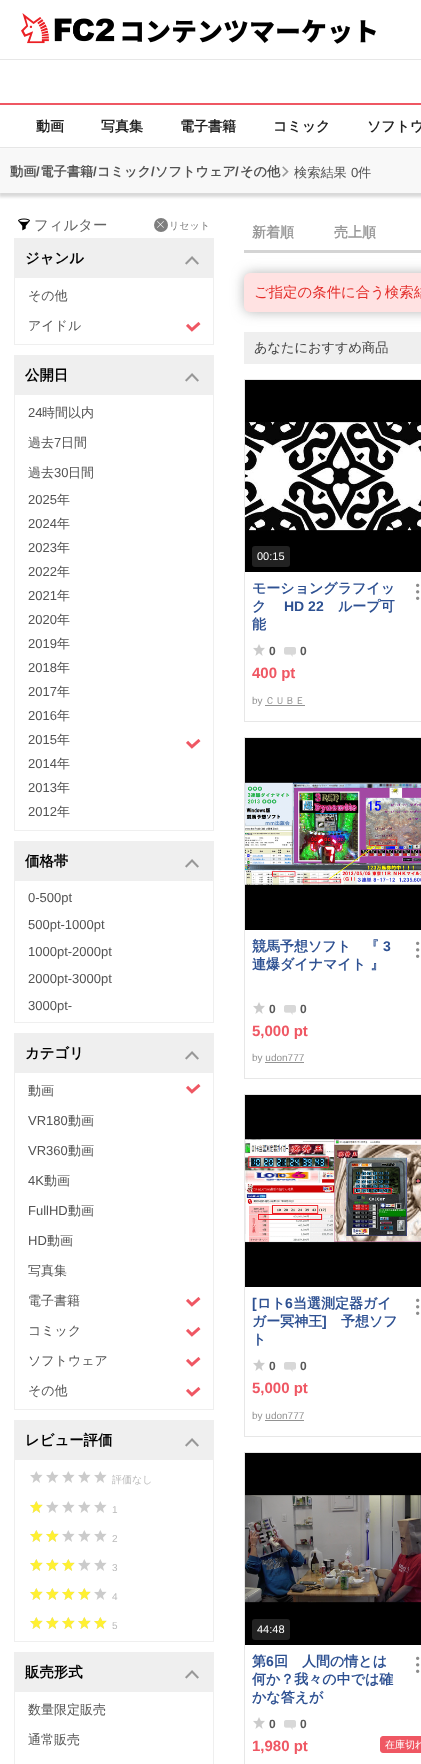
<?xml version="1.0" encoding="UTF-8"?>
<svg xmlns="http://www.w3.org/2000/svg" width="421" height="1764">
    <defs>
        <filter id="blur1" x="-50%" y="-200%" width="200%" height="500%"><feGaussianBlur stdDeviation="1.5"/></filter>
        <filter id="blur2" x="-50%" y="-200%" width="200%" height="500%"><feGaussianBlur stdDeviation="6.5"/></filter>
    </defs>
    <rect width="100%" height="100%" fill="#FFFFFF"/>
    <rect x="0" y="59" width="421" height="1" fill="#E7E7E7"/>
    <image x="21" y="13" width="94" height="31" href="img_01.png"/>
    <text x="119" y="41" font-family="'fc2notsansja'" font-size="26" font-weight="900" fill="#000000">コンテンツマーケット</text>
    <rect x="0" y="103" width="421" height="2" fill="#EF5763"/>
    <rect x="0" y="147" width="421" height="1" fill="#E7E7E7"/>
    <text x="36" y="131" font-family="WenQuanYi Zen Hei" font-size="14" font-weight="700" fill="#222222">動画</text>
    <text x="101" y="131" font-family="WenQuanYi Zen Hei" font-size="14" font-weight="700" fill="#222222">写真集</text>
    <text x="180" y="131" font-family="WenQuanYi Zen Hei" font-size="14" font-weight="700" fill="#222222">電子書籍</text>
    <text x="273" y="131" font-family="WenQuanYi Zen Hei" font-size="14" font-weight="700" fill="#222222">コミック</text>
    <text x="367" y="131" font-family="WenQuanYi Zen Hei" font-size="14" font-weight="700" fill="#222222">ソフトウ</text>
    <rect x="-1" y="150" width="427" height="47" fill="#000000" fill-opacity="0.15" filter="url(#blur1)"/>
    <rect x="0" y="149" width="421" height="44" fill="#F8F8F8"/>
    <text x="10" y="176" font-family="WenQuanYi Zen Hei" font-size="13.2" font-weight="700" fill="#535353">動画 電子書籍 コミック ソフトウェア その他</text>
    <text x="36" y="176" font-family="Liberation Sans" font-size="13.2" font-weight="700" fill="#535353">/</text>
    <text x="93" y="176" font-family="Liberation Sans" font-size="13.2" font-weight="700" fill="#535353">/</text>
    <text x="151" y="176" font-family="Liberation Sans" font-size="13.2" font-weight="700" fill="#535353">/</text>
    <text x="235" y="176" font-family="Liberation Sans" font-size="13.2" font-weight="700" fill="#535353">/</text>
    <image x="282" y="166" width="7" height="11" href="img_02.png"/>
    <text x="294" y="177" font-family="WenQuanYi Zen Hei" font-size="13.2" font-weight="500" fill="#535353">検索結果</text>
    <text x="351" y="177" font-family="Liberation Sans" font-size="13.2" fill="#535353">0</text>
    <text x="358" y="177" font-family="WenQuanYi Zen Hei" font-size="13.2" font-weight="500" fill="#535353">件</text>
    <image x="18" y="218" width="12" height="13" href="img_03.png"/>
    <text x="34" y="230" font-family="WenQuanYi Zen Hei" font-size="14.4" font-weight="500" fill="#636363">フィルター</text>
    <circle cx="161" cy="225" r="7" fill="#7E7E7E"/>
    <image x="157" y="221" width="7" height="7" href="img_04.png"/>
    <text x="169" y="229" font-family="WenQuanYi Zen Hei" font-size="10" font-weight="500" fill="#7E7E7E">リセット</text>
    <rect x="14.5" y="238.5" width="199" height="106" fill="none" stroke="#EFEFEF"/>
    <rect x="15" y="239" width="198" height="39" fill="#EFEFEF"/>
    <text x="25" y="263" font-family="WenQuanYi Zen Hei" font-size="14.4" font-weight="700" fill="#000000">ジャンル</text>
    <image x="185" y="256" width="14" height="9" href="img_05.png"/>
    <text x="28" y="300" font-family="WenQuanYi Zen Hei" font-size="13" font-weight="500" fill="#535353">その他</text>
    <text x="28" y="330" font-family="WenQuanYi Zen Hei" font-size="13" font-weight="500" fill="#535353">アイドル</text>
    <image x="186" y="322" width="15" height="10" href="img_06.png"/>
    <rect x="14.5" y="355.5" width="199" height="475" fill="none" stroke="#EFEFEF"/>
    <rect x="15" y="356" width="198" height="39" fill="#EFEFEF"/>
    <text x="25" y="380" font-family="WenQuanYi Zen Hei" font-size="14.4" font-weight="700" fill="#000000">公開日</text>
    <image x="185" y="373" width="14" height="9" href="img_05.png"/>
    <text x="28" y="417" font-family="Liberation Sans" font-size="13" fill="#535353">24</text>
    <text x="42" y="417" font-family="WenQuanYi Zen Hei" font-size="13" font-weight="500" fill="#535353">時間以内</text>
    <text x="28" y="447" font-family="WenQuanYi Zen Hei" font-size="13" font-weight="500" fill="#535353">過去</text>
    <text x="54" y="447" font-family="Liberation Sans" font-size="13" fill="#535353">7</text>
    <text x="61" y="447" font-family="WenQuanYi Zen Hei" font-size="13" font-weight="500" fill="#535353">日間</text>
    <text x="28" y="477" font-family="WenQuanYi Zen Hei" font-size="13" font-weight="500" fill="#535353">過去</text>
    <text x="54" y="477" font-family="Liberation Sans" font-size="13" fill="#535353">30</text>
    <text x="68" y="477" font-family="WenQuanYi Zen Hei" font-size="13" font-weight="500" fill="#535353">日間</text>
    <text x="28" y="504" font-family="Liberation Sans" font-size="13" fill="#535353">2025</text>
    <text x="57" y="504" font-family="WenQuanYi Zen Hei" font-size="13" font-weight="500" fill="#535353">年</text>
    <text x="28" y="528" font-family="Liberation Sans" font-size="13" fill="#535353">2024</text>
    <text x="57" y="528" font-family="WenQuanYi Zen Hei" font-size="13" font-weight="500" fill="#535353">年</text>
    <text x="28" y="552" font-family="Liberation Sans" font-size="13" fill="#535353">2023</text>
    <text x="57" y="552" font-family="WenQuanYi Zen Hei" font-size="13" font-weight="500" fill="#535353">年</text>
    <text x="28" y="576" font-family="Liberation Sans" font-size="13" fill="#535353">2022</text>
    <text x="57" y="576" font-family="WenQuanYi Zen Hei" font-size="13" font-weight="500" fill="#535353">年</text>
    <text x="28" y="600" font-family="Liberation Sans" font-size="13" fill="#535353">2021</text>
    <text x="57" y="600" font-family="WenQuanYi Zen Hei" font-size="13" font-weight="500" fill="#535353">年</text>
    <text x="28" y="624" font-family="Liberation Sans" font-size="13" fill="#535353">2020</text>
    <text x="57" y="624" font-family="WenQuanYi Zen Hei" font-size="13" font-weight="500" fill="#535353">年</text>
    <text x="28" y="648" font-family="Liberation Sans" font-size="13" fill="#535353">2019</text>
    <text x="57" y="648" font-family="WenQuanYi Zen Hei" font-size="13" font-weight="500" fill="#535353">年</text>
    <text x="28" y="672" font-family="Liberation Sans" font-size="13" fill="#535353">2018</text>
    <text x="57" y="672" font-family="WenQuanYi Zen Hei" font-size="13" font-weight="500" fill="#535353">年</text>
    <text x="28" y="696" font-family="Liberation Sans" font-size="13" fill="#535353">2017</text>
    <text x="57" y="696" font-family="WenQuanYi Zen Hei" font-size="13" font-weight="500" fill="#535353">年</text>
    <text x="28" y="720" font-family="Liberation Sans" font-size="13" fill="#535353">2016</text>
    <text x="57" y="720" font-family="WenQuanYi Zen Hei" font-size="13" font-weight="500" fill="#535353">年</text>
    <text x="28" y="744" font-family="Liberation Sans" font-size="13" fill="#535353">2015</text>
    <text x="57" y="744" font-family="WenQuanYi Zen Hei" font-size="13" font-weight="500" fill="#535353">年</text>
    <image x="186" y="739" width="15" height="10" href="img_06.png"/>
    <text x="28" y="768" font-family="Liberation Sans" font-size="13" fill="#535353">2014</text>
    <text x="57" y="768" font-family="WenQuanYi Zen Hei" font-size="13" font-weight="500" fill="#535353">年</text>
    <text x="28" y="792" font-family="Liberation Sans" font-size="13" fill="#535353">2013</text>
    <text x="57" y="792" font-family="WenQuanYi Zen Hei" font-size="13" font-weight="500" fill="#535353">年</text>
    <text x="28" y="816" font-family="Liberation Sans" font-size="13" fill="#535353">2012</text>
    <text x="57" y="816" font-family="WenQuanYi Zen Hei" font-size="13" font-weight="500" fill="#535353">年</text>
    <rect x="14.5" y="841.5" width="199" height="181" fill="none" stroke="#EFEFEF"/>
    <rect x="15" y="842" width="198" height="39" fill="#EFEFEF"/>
    <text x="25" y="866" font-family="WenQuanYi Zen Hei" font-size="14.4" font-weight="700" fill="#000000">価格帯</text>
    <image x="185" y="859" width="14" height="9" href="img_05.png"/>
    <text x="28" y="902" font-family="Liberation Sans" font-size="13" fill="#535353">0-500pt</text>
    <text x="28" y="929" font-family="Liberation Sans" font-size="13" fill="#535353">500pt-1000pt</text>
    <text x="28" y="956" font-family="Liberation Sans" font-size="13" fill="#535353">1000pt-2000pt</text>
    <text x="28" y="983" font-family="Liberation Sans" font-size="13" fill="#535353">2000pt-3000pt</text>
    <text x="28" y="1010" font-family="Liberation Sans" font-size="13" fill="#535353">3000pt-</text>
    <rect x="14.5" y="1033.5" width="199" height="376" fill="none" stroke="#EFEFEF"/>
    <rect x="15" y="1034" width="198" height="39" fill="#EFEFEF"/>
    <text x="25" y="1058" font-family="WenQuanYi Zen Hei" font-size="14.4" font-weight="700" fill="#000000">カテゴリ</text>
    <image x="185" y="1051" width="14" height="9" href="img_05.png"/>
    <text x="28" y="1095" font-family="WenQuanYi Zen Hei" font-size="13" font-weight="500" fill="#535353">動画</text>
    <image x="186" y="1084" width="15" height="10" href="img_06.png"/>
    <text x="28" y="1125" font-family="Liberation Sans" font-size="13" fill="#535353">VR180</text>
    <text x="68" y="1125" font-family="WenQuanYi Zen Hei" font-size="13" font-weight="500" fill="#535353">動画</text>
    <text x="28" y="1155" font-family="Liberation Sans" font-size="13" fill="#535353">VR360</text>
    <text x="68" y="1155" font-family="WenQuanYi Zen Hei" font-size="13" font-weight="500" fill="#535353">動画</text>
    <text x="28" y="1185" font-family="Liberation Sans" font-size="13" fill="#535353">4K</text>
    <text x="44" y="1185" font-family="WenQuanYi Zen Hei" font-size="13" font-weight="500" fill="#535353">動画</text>
    <text x="28" y="1215" font-family="Liberation Sans" font-size="13" fill="#535353">FullHD</text>
    <text x="68" y="1215" font-family="WenQuanYi Zen Hei" font-size="13" font-weight="500" fill="#535353">動画</text>
    <text x="28" y="1245" font-family="Liberation Sans" font-size="13" fill="#535353">HD</text>
    <text x="47" y="1245" font-family="WenQuanYi Zen Hei" font-size="13" font-weight="500" fill="#535353">動画</text>
    <text x="28" y="1275" font-family="WenQuanYi Zen Hei" font-size="13" font-weight="500" fill="#535353">写真集</text>
    <text x="28" y="1305" font-family="WenQuanYi Zen Hei" font-size="13" font-weight="500" fill="#535353">電子書籍</text>
    <image x="186" y="1297" width="15" height="10" href="img_06.png"/>
    <text x="28" y="1335" font-family="WenQuanYi Zen Hei" font-size="13" font-weight="500" fill="#535353">コミック</text>
    <image x="186" y="1327" width="15" height="10" href="img_06.png"/>
    <text x="28" y="1365" font-family="WenQuanYi Zen Hei" font-size="13" font-weight="500" fill="#535353">ソフトウェア</text>
    <image x="186" y="1357" width="15" height="10" href="img_06.png"/>
    <text x="28" y="1395" font-family="WenQuanYi Zen Hei" font-size="13" font-weight="500" fill="#535353">その他</text>
    <image x="186" y="1387" width="15" height="10" href="img_06.png"/>
    <rect x="14.5" y="1420.5" width="199" height="221" fill="none" stroke="#EFEFEF"/>
    <rect x="15" y="1421" width="198" height="39" fill="#EFEFEF"/>
    <text x="25" y="1445" font-family="WenQuanYi Zen Hei" font-size="14.4" font-weight="700" fill="#000000">レビュー評価</text>
    <image x="185" y="1438" width="14" height="9" href="img_05.png"/>
    <image x="30" y="1471" width="77" height="12" href="img_07.png"/>
    <text x="112" y="1483" font-family="WenQuanYi Zen Hei" font-size="10" font-weight="500" fill="#BABABA">評価なし</text>
    <image x="30" y="1501" width="77" height="12" href="img_07.png"/>
    <image x="30" y="1501" width="13" height="12" href="img_08.png"/>
    <text x="112" y="1513" font-family="Liberation Sans" font-size="10" fill="#BABABA">1</text>
    <image x="30" y="1530" width="77" height="12" href="img_07.png"/>
    <image x="30" y="1530" width="13" height="12" href="img_08.png"/>
    <image x="46" y="1530" width="13" height="12" href="img_08.png"/>
    <text x="112" y="1542" font-family="Liberation Sans" font-size="10" fill="#BABABA">2</text>
    <image x="30" y="1559" width="77" height="12" href="img_07.png"/>
    <image x="30" y="1559" width="13" height="12" href="img_08.png"/>
    <image x="46" y="1559" width="13" height="12" href="img_08.png"/>
    <image x="62" y="1559" width="13" height="12" href="img_08.png"/>
    <text x="112" y="1571" font-family="Liberation Sans" font-size="10" fill="#BABABA">3</text>
    <image x="30" y="1588" width="77" height="12" href="img_07.png"/>
    <image x="30" y="1588" width="13" height="12" href="img_08.png"/>
    <image x="46" y="1588" width="13" height="12" href="img_08.png"/>
    <image x="62" y="1588" width="13" height="12" href="img_08.png"/>
    <image x="78" y="1588" width="13" height="12" href="img_08.png"/>
    <text x="112" y="1600" font-family="Liberation Sans" font-size="10" fill="#BABABA">4</text>
    <image x="30" y="1617" width="77" height="12" href="img_07.png"/>
    <image x="30" y="1617" width="13" height="12" href="img_08.png"/>
    <image x="46" y="1617" width="13" height="12" href="img_08.png"/>
    <image x="62" y="1617" width="13" height="12" href="img_08.png"/>
    <image x="78" y="1617" width="13" height="12" href="img_08.png"/>
    <image x="94" y="1617" width="13" height="12" href="img_08.png"/>
    <text x="112" y="1629" font-family="Liberation Sans" font-size="10" fill="#BABABA">5</text>
    <rect x="14.5" y="1652.5" width="199" height="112" fill="none" stroke="#EFEFEF"/>
    <rect x="15" y="1653" width="198" height="39" fill="#EFEFEF"/>
    <text x="25" y="1677" font-family="WenQuanYi Zen Hei" font-size="14.4" font-weight="700" fill="#000000">販売形式</text>
    <image x="185" y="1670" width="14" height="9" href="img_05.png"/>
    <text x="28" y="1714" font-family="WenQuanYi Zen Hei" font-size="13" font-weight="500" fill="#535353">数量限定販売</text>
    <text x="28" y="1744" font-family="WenQuanYi Zen Hei" font-size="13" font-weight="500" fill="#535353">通常販売</text>
    <rect x="244" y="250" width="177" height="3" fill="#D4D4D4"/>
    <text x="252" y="237" font-family="WenQuanYi Zen Hei" font-size="14" font-weight="700" fill="#999999">新着順</text>
    <text x="334" y="237" font-family="WenQuanYi Zen Hei" font-size="14" font-weight="700" fill="#999999">売上順</text>
    <rect x="245" y="274" width="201" height="37" rx="5" fill="#A9A9A9" filter="url(#blur2)"/>
    <rect x="244" y="273" width="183" height="39" rx="6" fill="#FFE2E2"/>
    <text x="254" y="297" font-family="WenQuanYi Zen Hei" font-size="14.4" font-weight="500" fill="#E42F2B">ご指定の条件に合う検索結</text>
    <rect x="244" y="332" width="177" height="32" fill="#EFEFEF"/>
    <text x="254" y="352" font-family="WenQuanYi Zen Hei" font-size="13.2" font-weight="500" fill="#3F3F3F">あなたにおすすめ商品</text>
    <rect x="244.5" y="379.5" width="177" height="342" fill="none" stroke="#E7E7E7"/>
    <rect x="245" y="380" width="176" height="192" fill="#000000"/>
    <image x="245" y="422" width="176" height="109" href="img_09.png"/>
    <rect x="252" y="546" width="38" height="21" rx="3" fill="#222222"/>
    <text x="257" y="560" font-family="Liberation Sans" font-size="11" fill="#FFFFFF">00:15</text>
    <text font-family="WenQuanYi Zen Hei" font-size="14" font-weight="700" fill="#2E5192">
        <tspan x="252" y="593">モーショングラフイッ</tspan>
        <tspan x="252" y="611">ク</tspan>
    </text>
    <text x="284" y="611" font-family="Liberation Sans" font-size="14" font-weight="700" fill="#2E5192">HD 22</text>
    <text x="338" y="611" font-family="WenQuanYi Zen Hei" font-size="14" font-weight="700" fill="#2E5192">ループ可</text>
    <text x="252" y="629" font-family="WenQuanYi Zen Hei" font-size="14" font-weight="700" fill="#2E5192">能</text>
    <image x="416" y="583" width="4" height="17" href="img_10.png"/>
    <image x="253" y="644" width="12" height="12" href="img_11.png"/>
    <text x="269" y="655" font-family="Liberation Sans" font-size="12" font-weight="700" fill="#595959">0</text>
    <image x="284" y="647" width="12" height="10" href="img_12.png"/>
    <text x="300" y="655" font-family="Liberation Sans" font-size="12" font-weight="700" fill="#595959">0</text>
    <text x="252" y="678" font-family="Liberation Sans" font-size="15" font-weight="700" fill="#EF5763">400 pt</text>
    <text x="252" y="704" font-family="Liberation Sans" font-size="10" fill="#929292">by</text>
    <text x="265" y="704" font-family="WenQuanYi Zen Hei" font-size="10" font-weight="500" fill="#929292">ＣＵＢＥ</text>
    <rect x="265" y="705" width="40" height="1" fill="#929292"/>
    <rect x="244.5" y="737.5" width="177" height="341" fill="none" stroke="#E7E7E7"/>
    <rect x="245" y="738" width="176" height="192" fill="#000000"/>
    <image x="245" y="782" width="176" height="103" href="img_13.png"/>
    <text x="252" y="951" font-family="WenQuanYi Zen Hei" font-size="14" font-weight="700" fill="#2E5192">競馬予想ソフト　『</text>
    <text x="383" y="951" font-family="Liberation Sans" font-size="14" font-weight="700" fill="#2E5192">3</text>
    <text x="252" y="969" font-family="WenQuanYi Zen Hei" font-size="14" font-weight="700" fill="#2E5192">連爆ダイナマイト 』</text>
    <image x="416" y="941" width="4" height="17" href="img_10.png"/>
    <image x="253" y="1002" width="12" height="12" href="img_11.png"/>
    <text x="269" y="1013" font-family="Liberation Sans" font-size="12" font-weight="700" fill="#595959">0</text>
    <image x="284" y="1005" width="12" height="10" href="img_12.png"/>
    <text x="300" y="1013" font-family="Liberation Sans" font-size="12" font-weight="700" fill="#595959">0</text>
    <text x="252" y="1036" font-family="Liberation Sans" font-size="15" font-weight="700" fill="#EF5763">5,000 pt</text>
    <text x="252" y="1061" font-family="Liberation Sans" font-size="10" fill="#929292">by udon777</text>
    <rect x="265" y="1062" width="39" height="1" fill="#929292"/>
    <rect x="244.5" y="1094.5" width="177" height="342" fill="none" stroke="#E7E7E7"/>
    <rect x="245" y="1095" width="176" height="192" fill="#000000"/>
    <image x="245" y="1139" width="176" height="104" href="img_14.png"/>
    <text x="252" y="1308" font-family="Liberation Sans" font-size="14" font-weight="700" fill="#2E5192">[</text>
    <text x="257" y="1308" font-family="WenQuanYi Zen Hei" font-size="14" font-weight="700" fill="#2E5192">ロト</text>
    <text x="285" y="1308" font-family="Liberation Sans" font-size="14" font-weight="700" fill="#2E5192">6</text>
    <text x="293" y="1308" font-family="WenQuanYi Zen Hei" font-size="14" font-weight="700" fill="#2E5192">当選測定器ガイ</text>
    <text x="252" y="1326" font-family="WenQuanYi Zen Hei" font-size="14" font-weight="700" fill="#2E5192">ガー冥神王</text>
    <text x="322" y="1326" font-family="Liberation Sans" font-size="14" font-weight="700" fill="#2E5192">]</text>
    <text x="341" y="1326" font-family="WenQuanYi Zen Hei" font-size="14" font-weight="700" fill="#2E5192">予想ソフ</text>
    <text x="252" y="1344" font-family="WenQuanYi Zen Hei" font-size="14" font-weight="700" fill="#2E5192">ト</text>
    <image x="416" y="1298" width="4" height="17" href="img_10.png"/>
    <image x="253" y="1359" width="12" height="12" href="img_11.png"/>
    <text x="269" y="1370" font-family="Liberation Sans" font-size="12" font-weight="700" fill="#595959">0</text>
    <image x="284" y="1362" width="12" height="10" href="img_12.png"/>
    <text x="300" y="1370" font-family="Liberation Sans" font-size="12" font-weight="700" fill="#595959">0</text>
    <text x="252" y="1393" font-family="Liberation Sans" font-size="15" font-weight="700" fill="#EF5763">5,000 pt</text>
    <text x="252" y="1419" font-family="Liberation Sans" font-size="10" fill="#929292">by udon777</text>
    <rect x="265" y="1420" width="39" height="1" fill="#929292"/>
    <rect x="244.5" y="1452.5" width="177" height="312" fill="none" stroke="#E7E7E7"/>
    <rect x="245" y="1453" width="176" height="192" fill="#000000"/>
    <image x="245" y="1495" width="176" height="108" href="img_15.png"/>
    <rect x="252" y="1619" width="38" height="21" rx="3" fill="#222222"/>
    <text x="257" y="1633" font-family="Liberation Sans" font-size="11" fill="#FFFFFF">44:48</text>
    <text x="252" y="1666" font-family="WenQuanYi Zen Hei" font-size="14" font-weight="700" fill="#2E5192">第</text>
    <text x="266" y="1666" font-family="Liberation Sans" font-size="14" font-weight="700" fill="#2E5192">6</text>
    <text x="274" y="1666" font-family="WenQuanYi Zen Hei" font-size="14" font-weight="700" fill="#2E5192">回　人間の情とは</text>
    <text font-family="WenQuanYi Zen Hei" font-size="14" font-weight="700" fill="#2E5192">
        <tspan x="252" y="1684">何か？我々の中では確</tspan>
        <tspan x="252" y="1702">かな答えが</tspan>
    </text>
    <image x="416" y="1656" width="4" height="17" href="img_10.png"/>
    <image x="253" y="1717" width="12" height="12" href="img_11.png"/>
    <text x="269" y="1728" font-family="Liberation Sans" font-size="12" font-weight="700" fill="#595959">0</text>
    <image x="284" y="1720" width="12" height="10" href="img_12.png"/>
    <text x="300" y="1728" font-family="Liberation Sans" font-size="12" font-weight="700" fill="#595959">0</text>
    <text x="252" y="1751" font-family="Liberation Sans" font-size="15" font-weight="700" fill="#EF5763">1,980 pt</text>
    <rect x="380.5" y="1736.5" width="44" height="16" rx="2.5" fill="#EF5763" stroke="#EF5763"/>
    <text x="385" y="1748" font-family="WenQuanYi Zen Hei" font-size="10" font-weight="500" fill="#FFFFFF">在庫切れ</text>
</svg>
